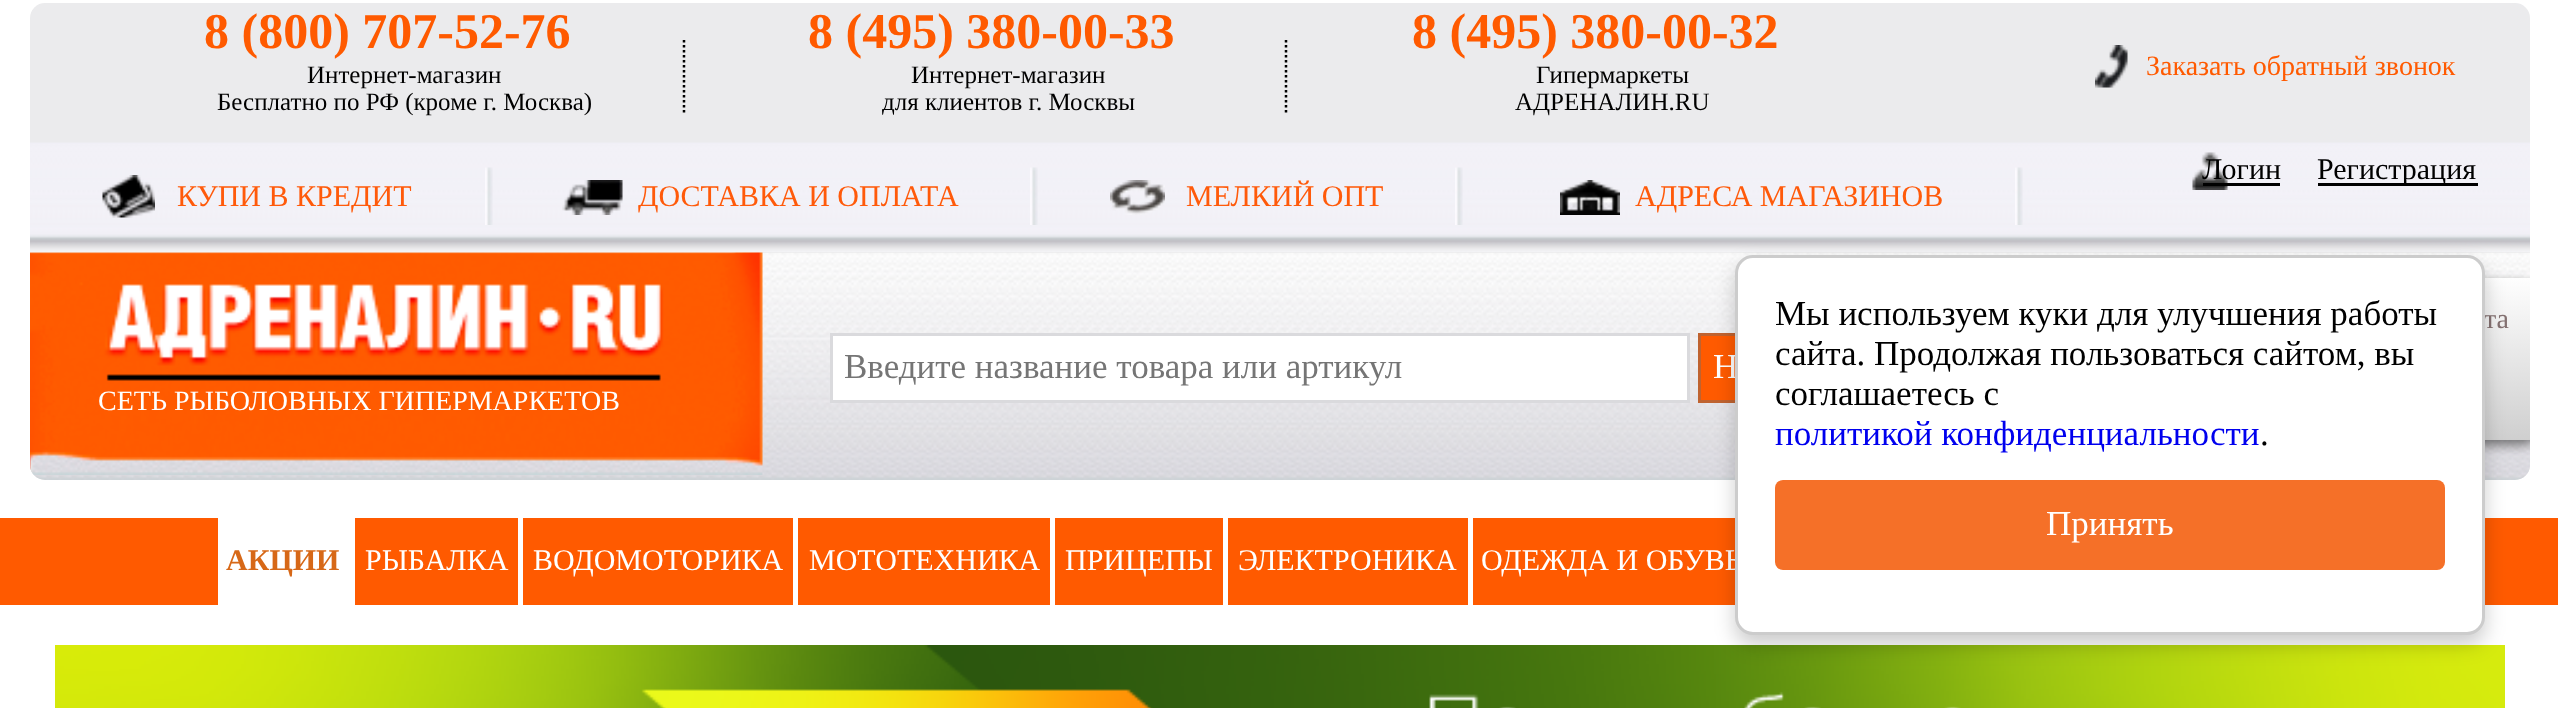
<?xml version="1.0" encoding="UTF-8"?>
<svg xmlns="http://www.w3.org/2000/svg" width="2558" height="708">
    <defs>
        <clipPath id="clip1"><path d="M 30 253 H 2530 V 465 C 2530 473.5 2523.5 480 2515 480 H 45 C 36.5 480 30 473.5 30 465 Z"/></clipPath>
        <filter id="blur1" x="-50%" y="-200%" width="200%" height="500%"><feGaussianBlur stdDeviation="6"/></filter>
        <linearGradient id="g1" gradientUnits="userSpaceOnUse" x1="2335" y1="278" x2="2335" y2="440"><stop offset="0" stop-color="#FEFEFE"/><stop offset="1" stop-color="#CFCFCF"/></linearGradient>
        <filter id="blur2" x="-50%" y="-200%" width="200%" height="500%"><feGaussianBlur stdDeviation="10"/></filter>
    </defs>
    <rect width="100%" height="100%" fill="#FFFFFF"/>
    <rect x="30" y="3" width="2500" height="477" rx="15" fill="#EBEBED"/>
    <text x="204" y="48" font-family="Liberation Serif" font-size="50" font-weight="700" fill="#FF5A00">8 (800) 707-52-76</text>
    <text x="307" y="83" font-family="Liberation Serif" font-size="25" fill="#000000">Интернет-магазин</text>
    <text x="217" y="110" font-family="Liberation Serif" font-size="25" fill="#000000">Бесплатно по РФ (кроме г. Москва)</text>
    <path d="M 684 40 V 115" fill="none" stroke="#000000" stroke-width="2.5" stroke-dasharray="2.5 2.5"/>
    <text x="808" y="48" font-family="Liberation Serif" font-size="50" font-weight="700" fill="#FF5A00">8 (495) 380-00-33</text>
    <text x="911" y="83" font-family="Liberation Serif" font-size="25" fill="#000000">Интернет-магазин</text>
    <text x="882" y="110" font-family="Liberation Serif" font-size="25" fill="#000000">для клиентов г. Москвы</text>
    <path d="M 1286 40 V 115" fill="none" stroke="#000000" stroke-width="2.5" stroke-dasharray="2.5 2.5"/>
    <text x="1412" y="48" font-family="Liberation Serif" font-size="50" font-weight="700" fill="#FF5A00">8 (495) 380-00-32</text>
    <text x="1536" y="83" font-family="Liberation Serif" font-size="25" fill="#000000">Гипермаркеты</text>
    <text x="1515" y="110" font-family="Liberation Serif" font-size="25" fill="#000000">АДРЕНАЛИН.RU</text>
    <image x="2095" y="45" width="33" height="43" href="img_01.png"/>
    <text x="2146" y="75" font-family="Liberation Serif" font-size="28" fill="#FF5A00">Заказать обратный звонок</text>
    <image x="30" y="142" width="2500" height="110" href="img_02.png"/>
    <image x="102" y="175" width="53" height="43" href="img_03.png"/>
    <text x="177" y="206" font-family="Liberation Serif" font-size="30" fill="#FF5A0A">КУПИ В КРЕДИТ</text>
    <image x="485" y="167" width="8" height="58" href="img_04.png"/>
    <image x="562" y="180" width="61" height="35" href="img_05.png"/>
    <text x="638" y="206" font-family="Liberation Serif" font-size="30" fill="#FF5A0A">ДОСТАВКА И ОПЛАТА</text>
    <image x="1030" y="167" width="8" height="58" href="img_06.png"/>
    <image x="1110" y="180" width="55" height="35" href="img_07.png"/>
    <text x="1186" y="206" font-family="Liberation Serif" font-size="30" fill="#FF5A0A">МЕЛКИЙ ОПТ</text>
    <image x="1455" y="167" width="8" height="58" href="img_06.png"/>
    <image x="1560" y="180" width="60" height="35" href="img_08.png"/>
    <text x="1635" y="206" font-family="Liberation Serif" font-size="30" fill="#FF5A0A">АДРЕСА МАГАЗИНОВ</text>
    <image x="2015" y="167" width="8" height="58" href="img_04.png"/>
    <image x="2192" y="152" width="36" height="38" href="img_09.png"/>
    <text x="2202" y="179" font-family="Liberation Serif" font-size="30" fill="#000000">Логин</text>
    <rect x="2203" y="183" width="77" height="3" fill="#000000"/>
    <rect x="2318" y="183" width="160" height="3" fill="#000000"/>
    <text x="2317" y="179" font-family="Liberation Serif" font-size="30" fill="#000000">Регистрация</text>
    <image x="30" y="252" width="2500" height="228" href="img_10.png"/>
    <g clip-path="url(#clip1)">
        <rect x="2118" y="283" width="425" height="162" rx="23" fill="#000000" fill-opacity="0.5" filter="url(#blur1)"/>
    </g>
    <rect x="2485" y="278" width="45" height="162" fill="url(#g1)"/>
    <text x="2484" y="328" font-family="Liberation Serif" font-size="28" fill="#847171">та</text>
    <rect x="831.5" y="334.5" width="857" height="67" fill="#FFFFFF" stroke="#DADADD" stroke-width="3"/>
    <text x="844" y="378" font-family="Liberation Serif" font-size="35" fill="#757575">Введите название товара или артикул</text>
    <rect x="1701" y="336" width="34" height="64" fill="#FF5A00"/>
    <rect x="1699.5" y="334.5" width="119" height="67" fill="none" stroke="#BF6330" stroke-width="3"/>
    <text x="1713" y="378" font-family="Liberation Serif" font-size="35" fill="#FFFFFF">Н</text>
    <image x="30" y="252" width="733" height="223" href="img_11.png"/>
    <text x="98" y="410" font-family="Liberation Serif" font-size="28" fill="#FFFFFF">СЕТЬ РЫБОЛОВНЫХ ГИПЕРМАРКЕТОВ</text>
    <rect x="0" y="518" width="2558" height="87" fill="#FF5A00"/>
    <rect x="218" y="518" width="132" height="87" fill="#FFFFFF"/>
    <rect x="350" y="515" width="5" height="93" fill="#FFFFFF"/>
    <text x="226" y="570" font-family="Liberation Serif" font-size="30" font-weight="700" fill="#D76817">АКЦИИ</text>
    <rect x="518" y="515" width="5" height="93" fill="#FFFFFF"/>
    <text x="365" y="570" font-family="Liberation Serif" font-size="30" fill="#FFFFFF">РЫБАЛКА</text>
    <rect x="793" y="515" width="5" height="93" fill="#FFFFFF"/>
    <text x="533" y="570" font-family="Liberation Serif" font-size="30" fill="#FFFFFF">ВОДОМОТОРИКА</text>
    <rect x="1050" y="515" width="5" height="93" fill="#FFFFFF"/>
    <text x="809" y="570" font-family="Liberation Serif" font-size="30" fill="#FFFFFF">МОТОТЕХНИКА</text>
    <rect x="1223" y="515" width="5" height="93" fill="#FFFFFF"/>
    <text x="1065" y="570" font-family="Liberation Serif" font-size="30" fill="#FFFFFF">ПРИЦЕПЫ</text>
    <rect x="1468" y="515" width="5" height="93" fill="#FFFFFF"/>
    <text x="1238" y="570" font-family="Liberation Serif" font-size="30" fill="#FFFFFF">ЭЛЕКТРОНИКА</text>
    <text x="1481" y="570" font-family="Liberation Serif" font-size="30" fill="#FFFFFF">ОДЕЖДА И ОБУВЬ</text>
    <image x="55" y="645" width="2450" height="63" href="img_12.png"/>
    <rect x="1735" y="265" width="750" height="380" rx="18" fill="#000000" fill-opacity="0.2" filter="url(#blur2)"/>
    <rect x="1736.5" y="256.5" width="747" height="377" rx="16.5" fill="#FFFFFF" stroke="#CCCCCC" stroke-width="3"/>
    <text font-family="Liberation Serif" font-size="35" fill="#000000">
        <tspan x="1775" y="325">Мы используем куки для улучшения работы</tspan>
        <tspan x="1775" y="365">сайта. Продолжая пользоваться сайтом, вы</tspan>
        <tspan x="1775" y="405">соглашаетесь с</tspan>
    </text>
    <text x="1775" y="445" font-family="Liberation Serif" font-size="35" fill="#0000EE">политикой конфиденциальности</text>
    <text x="2260" y="445" font-family="Liberation Serif" font-size="35" fill="#000000">.</text>
    <rect x="1775" y="480" width="670" height="90" rx="8" fill="#F57028"/>
    <text x="2046" y="535" font-family="Liberation Serif" font-size="35" fill="#FFFFFF">Принять</text>
</svg>
